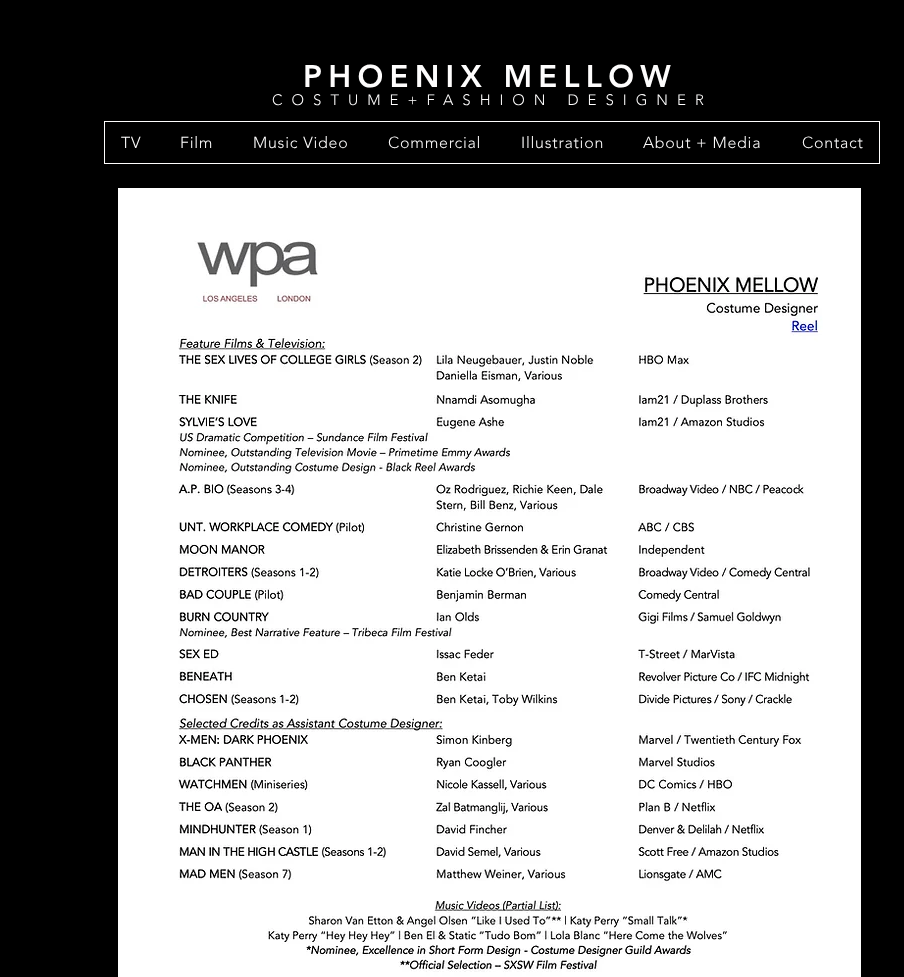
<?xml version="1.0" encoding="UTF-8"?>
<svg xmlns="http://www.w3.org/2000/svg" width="904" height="977">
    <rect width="100%" height="100%" fill="#000000"/>
    <text x="303" y="87" font-family="'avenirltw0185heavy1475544'" font-size="31" font-weight="900" letter-spacing="6.25" fill="#FEFDFD">PHOENIX MELLOW</text>
    <text x="272" y="105" font-family="'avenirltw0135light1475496'" font-size="15" font-weight="300" letter-spacing="9" fill="#FEFDFD">COSTUME+FASHION DESIGNER</text>
    <rect x="104.5" y="121.5" width="775" height="42" fill="none" stroke="#FEFDFD"/>
    <text x="121" y="148" font-family="'avenirltw0135light1475496'" font-size="16" font-weight="300" letter-spacing="0.75" fill="#FEFDFD">TV</text>
    <text x="180" y="148" font-family="'avenirltw0135light1475496'" font-size="16" font-weight="300" letter-spacing="0.75" fill="#FEFDFD">Film</text>
    <text x="253" y="148" font-family="'avenirltw0135light1475496'" font-size="16" font-weight="300" letter-spacing="0.75" fill="#FEFDFD">Music Video</text>
    <text x="388" y="148" font-family="'avenirltw0135light1475496'" font-size="16" font-weight="300" letter-spacing="0.75" fill="#FEFDFD">Commercial</text>
    <text x="521" y="148" font-family="'avenirltw0135light1475496'" font-size="16" font-weight="300" letter-spacing="0.75" fill="#FEFDFD">Illustration</text>
    <text x="643" y="148" font-family="'avenirltw0135light1475496'" font-size="16" font-weight="300" letter-spacing="0.75" fill="#FEFDFD">About + Media</text>
    <text x="802" y="148" font-family="'avenirltw0135light1475496'" font-size="16" font-weight="300" letter-spacing="0.75" fill="#FEFDFD">Contact</text>
    <image x="118" y="188" width="743" height="789" href="img_01.png"/>
</svg>
